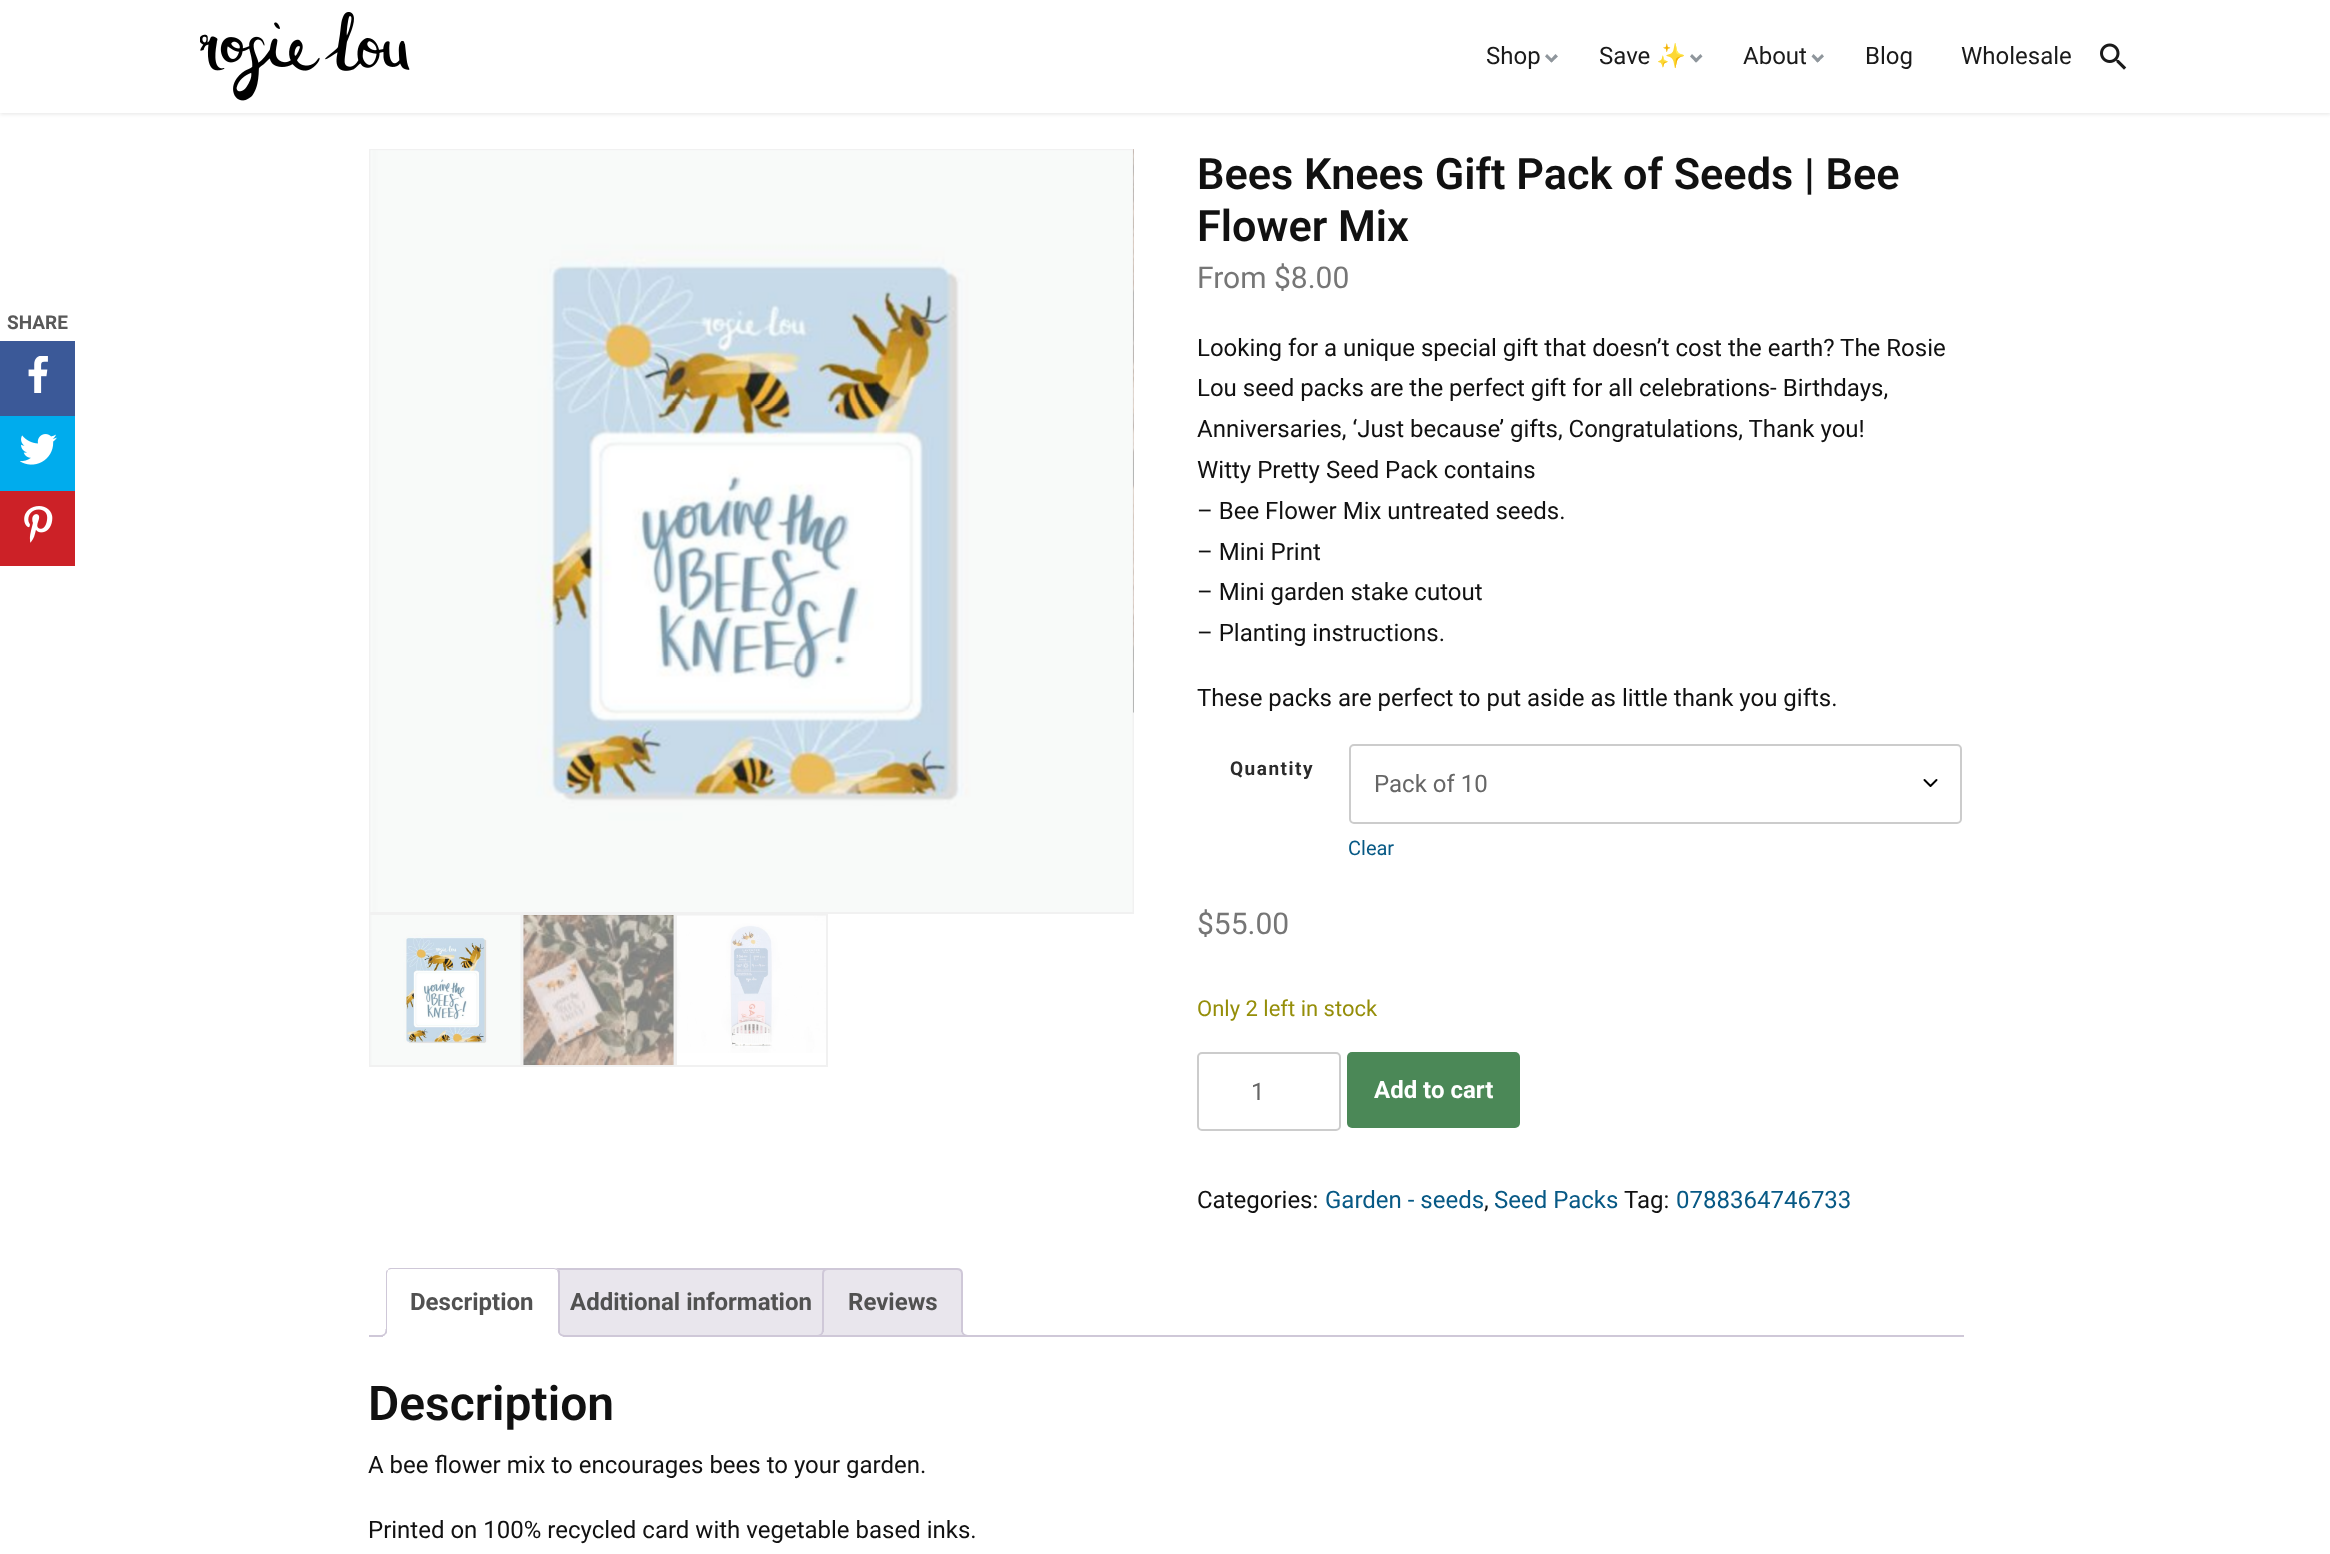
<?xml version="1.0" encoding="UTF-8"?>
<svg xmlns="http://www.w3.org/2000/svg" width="2330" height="1554">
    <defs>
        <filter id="blur1" x="-50%" y="-200%" width="200%" height="500%"><feGaussianBlur stdDeviation="2"/></filter>
        <clipPath id="clip1"><rect x="369" y="1268" width="1595" height="69"/></clipPath>
    </defs>
    <rect width="100%" height="100%" fill="#FFFFFF"/>
    <rect x="0" y="2" width="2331" height="112" fill="#000000" fill-opacity="0.1" filter="url(#blur1)"/>
    <rect x="0" y="0" width="2330" height="113" fill="#FFFFFF"/>
    <image x="200" y="12" width="210" height="89" href="img_01.png"/>
    <text x="1486" y="64" font-family="Roboto" font-size="24" fill="#1A1A1A">Shop</text>
    <path d="M 1555.5 54 L 1558 56.5 L 1551.5 62.5 L 1549.5 60.5 Z" fill="#8F969C"/>
    <path d="M 1547 54 L 1553.5 60.5 L 1551.5 62.5 L 1545 56.5 Z" fill="#8F969C"/>
    <text x="1599" y="64" font-family="Roboto" font-size="24" fill="#1A1A1A">Save</text>
    <text x="1656" y="64" font-family="Noto Color Emoji" font-size="24" fill="#1A1A1A">✨</text>
    <path d="M 1700.5 54 L 1702.5 56.5 L 1696 62.5 L 1694 60.5 Z" fill="#8F969C"/>
    <path d="M 1692 54 L 1698.5 60.5 L 1696 62.5 L 1690 56.5 Z" fill="#8F969C"/>
    <text x="1743" y="64" font-family="Roboto" font-size="24" fill="#1A1A1A">About</text>
    <path d="M 1822 54 L 1824 56.5 L 1817.5 62.5 L 1815.5 60.5 Z" fill="#8F969C"/>
    <path d="M 1813.5 54 L 1820 60.5 L 1817.5 62.5 L 1811.5 56.5 Z" fill="#8F969C"/>
    <text x="1865" y="64" font-family="Roboto" font-size="24" fill="#1A1A1A">Blog</text>
    <text x="1961" y="64" font-family="Roboto" font-size="24" fill="#1A1A1A">Wholesale</text>
    <image x="2100" y="43" width="27" height="27" href="img_02.png"/>
    <text x="7" y="329" font-family="Roboto" font-size="19" font-weight="700" fill="#595959">SHARE</text>
    <rect x="0" y="341" width="75" height="75" fill="#3B5998"/>
    <image x="28" y="356" width="20" height="37" href="img_03.png"/>
    <rect x="0" y="416" width="75" height="75" fill="#00ACED"/>
    <image x="20" y="434" width="37" height="31" href="img_04.png"/>
    <rect x="0" y="491" width="75" height="75" fill="#CC2127"/>
    <image x="24" y="506" width="29" height="37" href="img_05.png"/>
    <rect x="370" y="150" width="763" height="763" fill="none" stroke="#F1F1F1" stroke-width="2"/>
    <image x="370" y="150" width="763" height="762" href="img_06.png"/>
    <image x="1133" y="149" width="1" height="564" href="img_07.png"/>
    <rect x="370" y="915" width="151" height="151" fill="none" stroke="#F1F1F1" stroke-width="2"/>
    <image x="370" y="915" width="151" height="150" href="img_08.png"/>
    <rect x="523" y="915" width="151" height="151" fill="none" stroke="#F1F1F1" stroke-width="2"/>
    <image x="523" y="915" width="151" height="150" href="img_09.png"/>
    <rect x="676" y="915" width="151" height="151" fill="none" stroke="#F1F1F1" stroke-width="2"/>
    <image x="677" y="915" width="149" height="138" href="img_10.png"/>
    <text font-family="Roboto" font-size="43.25" font-weight="600" fill="#111111">
        <tspan x="1197" y="189">Bees Knees Gift Pack of Seeds | Bee</tspan>
        <tspan x="1197" y="241">Flower Mix</tspan>
    </text>
    <text x="1197" y="288" font-family="Roboto" font-size="30" fill="#767676">From $8.00</text>
    <text font-family="Roboto" font-size="24" fill="#111111">
        <tspan x="1197" y="356">Looking for a unique special gift that doesn’t cost the earth? The Rosie</tspan>
        <tspan x="1197" y="396">Lou seed packs are the perfect gift for all celebrations- Birthdays,</tspan>
        <tspan x="1197" y="437">Anniversaries, ‘Just because’ gifts, Congratulations, Thank you!</tspan>
        <tspan x="1197" y="478">Witty Pretty Seed Pack contains</tspan>
        <tspan x="1197" y="519">– Bee Flower Mix untreated seeds.</tspan>
        <tspan x="1197" y="560">– Mini Print</tspan>
        <tspan x="1197" y="600">– Mini garden stake cutout</tspan>
        <tspan x="1197" y="641">– Planting instructions.</tspan>
    </text>
    <text x="1197" y="706" font-family="Roboto" font-size="24" fill="#111111">These packs are perfect to put aside as little thank you gifts.</text>
    <text x="1230" y="775" font-family="Roboto" font-size="19" font-weight="700" letter-spacing="1.5" fill="#2B2B2B">Quantity</text>
    <path d="M 1924.5 780 L 1930.5 786 L 1936.5 780" fill="none" stroke="#000000" stroke-width="2" stroke-linecap="round" stroke-linejoin="round"/>
    <rect x="1350" y="745" width="611" height="78" rx="4" fill="none" stroke="#CCCCCC" stroke-width="2"/>
    <text x="1374" y="792" font-family="Roboto" font-size="24" fill="#666666">Pack of 10</text>
    <text x="1348" y="855" font-family="Roboto" font-size="20" fill="#075985">Clear</text>
    <text x="1197" y="934" font-family="Roboto" font-size="30" fill="#767676">$55.00</text>
    <text x="1197" y="1016" font-family="Roboto" font-size="22" fill="#958E09">Only 2 left in stock</text>
    <rect x="1198" y="1053" width="142" height="77" rx="4" fill="none" stroke="#CCCCCC" stroke-width="2"/>
    <text x="1251" y="1100" font-family="Roboto" font-size="24" fill="#666666">1</text>
    <rect x="1347" y="1052" width="173" height="76" rx="5" fill="#4B8857"/>
    <text x="1374" y="1098" font-family="Roboto" font-size="24" font-weight="700" fill="#FFFFFF">Add to cart</text>
    <text x="1197" y="1208" font-family="Roboto" font-size="24" fill="#111111">Categories:</text>
    <text x="1325" y="1208" font-family="Roboto" font-size="24" fill="#075985">Garden - seeds</text>
    <text x="1484" y="1208" font-family="Roboto" font-size="24" fill="#111111">,</text>
    <text x="1494" y="1208" font-family="Roboto" font-size="24" fill="#075985">Seed Packs</text>
    <text x="1624" y="1208" font-family="Roboto" font-size="24" fill="#111111">Tag:</text>
    <text x="1676" y="1208" font-family="Roboto" font-size="24" fill="#075985">0788364746733</text>
    <rect x="559" y="1270" width="265" height="65" fill="#E9E6ED"/>
    <rect x="546" y="1269" width="290" height="67" fill="none" stroke="#CFC8D8" stroke-width="2"/>
    <path d="M 828 1269 H 957 C 960 1269 962 1271 962 1274 V 1336 H 823 V 1274 C 823 1271 825 1269 828 1269 Z" fill="#E9E6ED" stroke="#CFC8D8" stroke-width="2"/>
    <g clip-path="url(#clip1)">
        <path d="M 819 1336.5 V 1340 C 825 1340 827 1338 827 1332 H 823.5 C 823 1334 821 1336 819 1336.5 Z" fill="#E9E6ED"/>
    </g>
    <path d="M 816 1329 H 823.5 C 823.5 1334.5 821.5 1336.5 816 1336.5 Z M 816 1329 H 822 C 822 1333.5 820.5 1335 816 1335 Z" fill="#CFC8D8" fill-rule="evenodd"/>
    <g clip-path="url(#clip1)">
        <path d="M 959 1332 C 959 1337 960.5 1340 966 1340 V 1336.5 C 964 1336 962 1334 961.5 1332 Z" fill="#E9E6ED"/>
    </g>
    <path d="M 961.5 1329 H 969 V 1336.5 C 965 1336.5 961.5 1335 961.5 1330.5 Z M 963 1329 H 969 V 1335 C 966 1335 963 1334 963 1330.5 Z" fill="#CFC8D8" fill-rule="evenodd"/>
    <rect x="369" y="1335" width="1595" height="2" fill="#CFC8D8"/>
    <path d="M 392 1268 H 554 C 557.5 1268 560 1270.5 560 1274 V 1337 H 386 V 1274 C 386 1270.5 388.5 1268 392 1268 Z" fill="#FFFFFF"/>
    <path d="M 392 1268 C 390 1268 388 1268 388 1270 L 391 1269 H 554 L 557 1270 L 558 1269 L 554 1268 Z" fill="#CFC8D8"/>
    <path d="M 558 1269 L 560 1271 V 1336 L 558 1335 V 1274 C 558 1272 557 1271 557 1270 Z" fill="#CFC8D8"/>
    <path d="M 559 1336 H 386 L 387 1335 H 558 Z" fill="#FFFFFF"/>
    <path d="M 388 1270 C 386 1270 386 1272 386 1274 V 1336 L 387 1335 V 1274 C 387 1272 388 1271 388 1270 Z" fill="#CFC8D8"/>
    <text x="410" y="1310" font-family="Roboto" font-size="24" font-weight="700" fill="#515151">Description</text>
    <g clip-path="url(#clip1)">
        <path d="M 383 1336 V 1340 C 388.5 1340 390 1337 390 1332 H 387 C 386.5 1334 385 1335.5 383 1336 Z" fill="#FFFFFF"/>
    </g>
    <path d="M 379.5 1329 H 387 C 387 1334.5 385 1336.5 379.5 1336.5 Z M 379.5 1329 H 385.5 C 385.5 1333.5 384 1335 379.5 1335 Z" fill="#CFC8D8" fill-rule="evenodd"/>
    <g clip-path="url(#clip1)">
        <path d="M 555 1332 C 555 1338 557 1340 563 1340 V 1336.5 C 560.5 1336 559 1334.5 558 1332 Z" fill="#FFFFFF"/>
    </g>
    <path d="M 558 1329 H 565.5 V 1336.5 C 561.5 1336.5 558 1335 558 1330.5 Z M 559.5 1329 H 565.5 V 1335 C 562.5 1335 559.5 1334 559.5 1330.5 Z" fill="#CFC8D8" fill-rule="evenodd"/>
    <text x="570" y="1310" font-family="Roboto" font-size="24" font-weight="700" fill="#515151">Additional information</text>
    <text x="848" y="1310" font-family="Roboto" font-size="24" font-weight="700" fill="#515151">Reviews</text>
    <text x="368" y="1420" font-family="Roboto" font-size="48" font-weight="600" fill="#111111">Description</text>
    <text x="368" y="1473" font-family="Roboto" font-size="24" fill="#111111">A bee flower mix to encourages bees to your garden.</text>
    <text x="368" y="1538" font-family="Roboto" font-size="24" fill="#111111">Printed on 100% recycled card with vegetable based inks.</text>
</svg>
